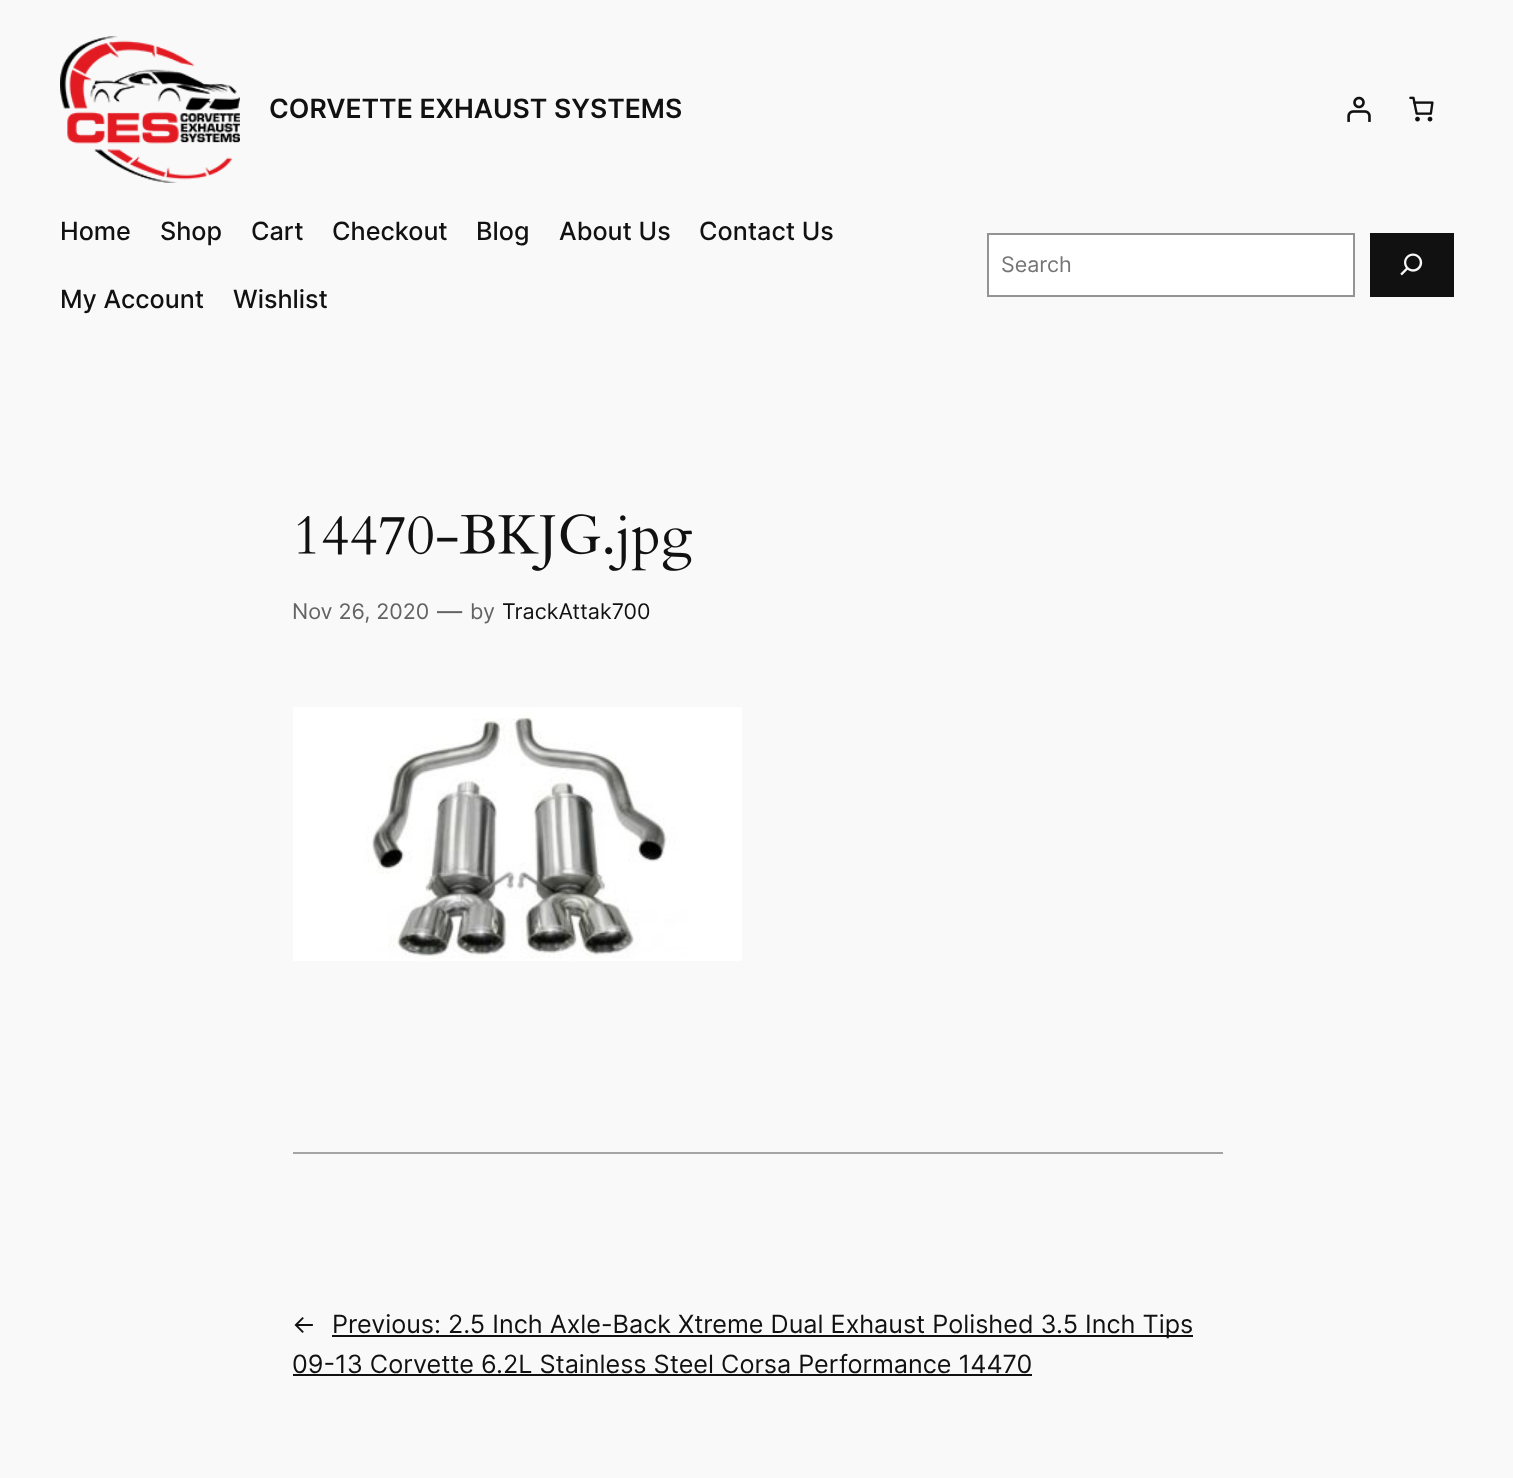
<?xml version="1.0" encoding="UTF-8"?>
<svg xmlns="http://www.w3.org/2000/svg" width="1513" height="1478">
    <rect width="100%" height="100%" fill="#F9F9F9"/>
    <image x="60" y="36" width="180" height="147" href="img_01.png"/>
    <text x="269" y="118" font-family="Inter" font-size="26.6" font-weight="600" fill="#111111">CORVETTE EXHAUST SYSTEMS</text>
    <image x="1347" y="96" width="24" height="26" href="img_02.png"/>
    <image x="1409" y="96" width="25" height="26" href="img_03.png"/>
    <text x="60" y="240" font-family="Inter" font-size="25.2" font-weight="500" fill="#111111">Home</text>
    <text x="160" y="240" font-family="Inter" font-size="25.2" font-weight="500" fill="#111111">Shop</text>
    <text x="251" y="240" font-family="Inter" font-size="25.2" font-weight="500" fill="#111111">Cart</text>
    <text x="332" y="240" font-family="Inter" font-size="25.2" font-weight="500" fill="#111111">Checkout</text>
    <text x="476" y="240" font-family="Inter" font-size="25.2" font-weight="500" fill="#111111">Blog</text>
    <text x="559" y="240" font-family="Inter" font-size="25.2" font-weight="500" fill="#111111">About Us</text>
    <text x="699" y="240" font-family="Inter" font-size="25.2" font-weight="500" fill="#111111">Contact Us</text>
    <text x="60" y="308" font-family="Inter" font-size="25.2" font-weight="500" fill="#111111">My Account</text>
    <text x="233" y="308" font-family="Inter" font-size="25.2" font-weight="500" fill="#111111">Wishlist</text>
    <rect x="988" y="234" width="366" height="62" fill="#FFFFFF" stroke="#949494" stroke-width="2"/>
    <text x="1001" y="272" font-family="Inter" font-size="21.5" fill="#757575">Search</text>
    <rect x="1370" y="233" width="84" height="64" fill="#111111"/>
    <image x="1400" y="253" width="23" height="23" href="img_04.png"/>
    <image x="297" y="514" width="395" height="57" href="img_05.png"/>
    <text x="292" y="619" font-family="Inter" font-size="21.5" fill="#636363">Nov 26, 2020</text>
    <text x="437" y="620" font-family="Inter" font-size="25.2" fill="#636363">—</text>
    <text x="470" y="619" font-family="Inter" font-size="21.5" fill="#636363">by</text>
    <text x="502" y="619" font-family="Inter" font-size="21.5" fill="#111111">TrackAttak700</text>
    <image x="293" y="707" width="449" height="254" href="img_06.png"/>
    <rect x="293" y="1152" width="930" height="2" fill="#A4A4A4"/>
    <text x="292" y="1333" font-family="Inter" font-size="25.2" fill="#111111">←</text>
    <rect x="332" y="1335" width="861" height="2" fill="#111111"/>
    <text x="332" y="1333" font-family="Inter" font-size="25.2" fill="#111111">Previous: 2.5 Inch Axle-Back Xtreme Dual Exhaust Polished 3.5 Inch Tips</text>
    <text x="292" y="1373" font-family="Inter" font-size="25.2" fill="#111111">09-13 Corvette 6.2L Stainless Steel Corsa Performance 14470</text>
    <rect x="293" y="1374" width="739" height="2" fill="#111111"/>
</svg>
